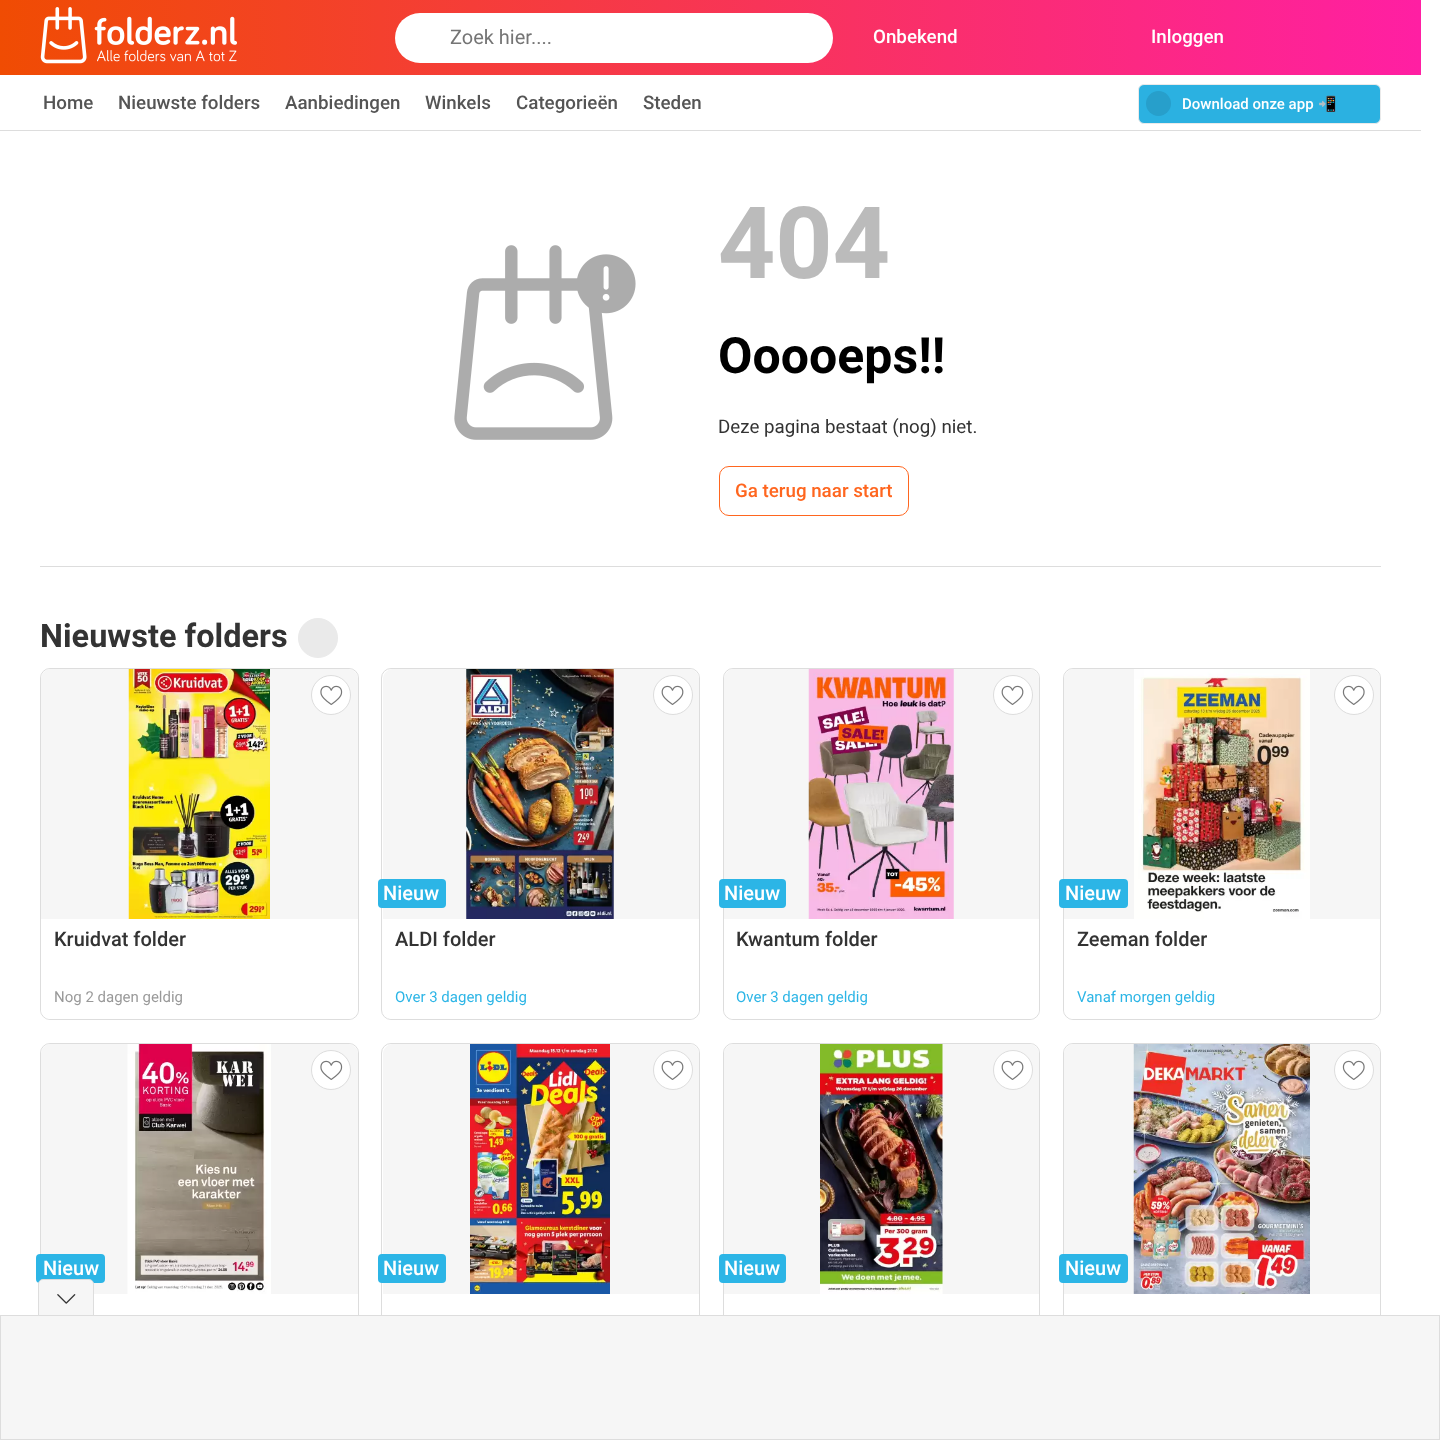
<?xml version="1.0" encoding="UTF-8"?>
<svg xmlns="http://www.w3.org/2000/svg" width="1440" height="1440">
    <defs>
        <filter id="blur1" x="-50%" y="-200%" width="200%" height="500%"><feGaussianBlur stdDeviation="0.5"/></filter>
        <linearGradient id="g1" gradientUnits="userSpaceOnUse" x1="1421" y1="65" x2="0" y2="65"><stop offset="0" stop-color="#FF1FA3"/><stop offset="1" stop-color="#F04C03"/></linearGradient>
    </defs>
    <rect width="100%" height="100%" fill="#FFFFFF"/>
    <rect x="0" y="1" width="1421" height="130" fill="#DDDDDD" filter="url(#blur1)"/>
    <rect x="0" y="0" width="1421" height="75" fill="url(#g1)"/>
    <image x="40" y="7" width="197" height="57" href="img_01.png"/>
    <rect x="395" y="13" width="438" height="50" rx="25" fill="#FFFFFF"/>
    <text x="450" y="44" font-family="Roboto" font-size="20" fill="#757575">Zoek hier....</text>
    <text x="873" y="43" font-family="Roboto" font-size="18.75" font-weight="500" fill="#FFFFFF">Onbekend</text>
    <text x="1151" y="43" font-family="Roboto" font-size="18.75" font-weight="500" fill="#FFFFFF">Inloggen</text>
    <rect x="0" y="75" width="1421" height="55" fill="#FFFFFF"/>
    <text x="43" y="109" font-family="Roboto" font-size="18.75" font-weight="500" fill="#555555">Home</text>
    <text x="118" y="109" font-family="Roboto" font-size="18.75" font-weight="500" fill="#555555">Nieuwste folders</text>
    <text x="285" y="109" font-family="Roboto" font-size="18.75" font-weight="500" fill="#555555">Aanbiedingen</text>
    <text x="425" y="109" font-family="Roboto" font-size="18.75" font-weight="500" fill="#555555">Winkels</text>
    <text x="516" y="109" font-family="Roboto" font-size="18.75" font-weight="500" fill="#555555">Categorieën</text>
    <text x="643" y="109" font-family="Roboto" font-size="18.75" font-weight="500" fill="#555555">Steden</text>
    <rect x="1138.5" y="84.5" width="242" height="39" rx="5.5" fill="#2BB1E1" stroke="#EAEAEA"/>
    <circle cx="1158.5" cy="103.5" r="12.5" fill="#279FCB"/>
    <text x="1182" y="109" font-family="Roboto" font-size="15" font-weight="500" fill="#FFFFFF">Download onze app</text>
    <text x="1318" y="109" font-family="Noto Color Emoji" font-size="15" fill="#FFFFFF">📲</text>
    <rect x="40" y="566" width="1341" height="1" fill="#DDDDDD"/>
    <image x="454" y="245" width="182" height="195" href="img_02.png"/>
    <text x="718" y="278" font-family="Roboto" font-size="100" font-weight="700" fill="#BBBBBB">404</text>
    <text x="718" y="373" font-family="Roboto" font-size="50" font-weight="700" fill="#000000">Ooooeps!!</text>
    <text x="718" y="433" font-family="Roboto" font-size="18.75" fill="#333333">Deze pagina bestaat (nog) niet.</text>
    <rect x="719.5" y="466.5" width="189" height="49" rx="9.5" fill="none" stroke="#FF661F"/>
    <text x="735" y="497" font-family="Roboto" font-size="18.75" font-weight="500" fill="#FF661F">Ga terug naar start</text>
    <text x="40" y="647" font-family="Roboto" font-size="32.5" font-weight="700" fill="#333333">Nieuwste folders</text>
    <circle cx="318" cy="638" r="19.5" fill="#EAEAEA" stroke="#EAEAEA"/>
    <rect x="40.5" y="668.5" width="318" height="351" rx="9.5" fill="none" stroke="#DDDDDD"/>
    <path d="M 51 669 H 348 C 353.5 669 358 673.5 358 679 V 919 H 41 V 679 C 41 673.5 45.5 669 51 669 Z" fill="#F6F6F6"/>
    <image x="128" y="669" width="142" height="250" href="img_03.png"/>
    <circle cx="331" cy="695" r="19.5" fill="#FFFFFF" stroke="#DDDDDD"/>
    <image x="320" y="685" width="23" height="20" href="img_04.png"/>
    <path d="M 41 919 H 358 V 1009 C 358 1014.5 353.5 1019 348 1019 H 51 C 45.5 1019 41 1014.5 41 1009 Z" fill="#FFFFFF"/>
    <text x="54" y="946" font-family="Roboto" font-size="20" font-weight="500" fill="#333333">Kruidvat folder</text>
    <text x="54" y="1002" font-family="Roboto" font-size="15" fill="#999999">Nog 2 dagen geldig</text>
    <rect x="381.5" y="668.5" width="318" height="351" rx="9.5" fill="none" stroke="#DDDDDD"/>
    <path d="M 393 669 H 689 C 694.5 669 699 673.5 699 679 V 919 H 383 V 679 C 383 673.5 387.5 669 393 669 Z" fill="#F6F6F6"/>
    <circle cx="673" cy="695" r="19.5" fill="#FFFFFF" stroke="#DDDDDD"/>
    <image x="661" y="685" width="23" height="20" href="img_05.png"/>
    <image x="466" y="669" width="148" height="250" href="img_06.png"/>
    <rect x="378" y="879" width="68" height="29" rx="4" fill="#2CB5E6"/>
    <text x="383" y="900" font-family="Roboto" font-size="20" font-weight="500" fill="#FFFFFF">Nieuw</text>
    <path d="M 383 919 H 699 V 1009 C 699 1014.5 694.5 1019 689 1019 H 393 C 387.5 1019 383 1014.5 383 1009 Z" fill="#FFFFFF"/>
    <text x="395" y="946" font-family="Roboto" font-size="20" font-weight="500" fill="#333333">ALDI folder</text>
    <text x="395" y="1002" font-family="Roboto" font-size="15" fill="#2CB5E6">Over 3 dagen geldig</text>
    <rect x="723.5" y="668.5" width="316" height="351" rx="9.5" fill="none" stroke="#DDDDDD"/>
    <path d="M 734 669 H 1029 C 1034.5 669 1039 673.5 1039 679 V 919 H 724 V 679 C 724 673.5 728.5 669 734 669 Z" fill="#F6F6F6"/>
    <circle cx="1013" cy="695" r="19.5" fill="#FFFFFF" stroke="#DDDDDD"/>
    <image x="1001" y="685" width="23" height="20" href="img_05.png"/>
    <image x="808" y="669" width="146" height="250" href="img_07.png"/>
    <rect x="719" y="879" width="67" height="29" rx="4" fill="#2CB5E6"/>
    <text x="724" y="900" font-family="Roboto" font-size="20" font-weight="500" fill="#FFFFFF">Nieuw</text>
    <path d="M 724 919 H 1039 V 1009 C 1039 1014.5 1034.5 1019 1029 1019 H 734 C 728.5 1019 724 1014.5 724 1009 Z" fill="#FFFFFF"/>
    <text x="736" y="946" font-family="Roboto" font-size="20" font-weight="500" fill="#333333">Kwantum folder</text>
    <text x="736" y="1002" font-family="Roboto" font-size="15" fill="#2CB5E6">Over 3 dagen geldig</text>
    <rect x="1063.5" y="668.5" width="317" height="351" rx="9.5" fill="none" stroke="#DDDDDD"/>
    <path d="M 1074 669 H 1370 C 1375.5 669 1380 673.5 1380 679 V 919 H 1064 V 679 C 1064 673.5 1068.5 669 1074 669 Z" fill="#F6F6F6"/>
    <circle cx="1354" cy="695" r="19.5" fill="#FFFFFF" stroke="#DDDDDD"/>
    <image x="1342" y="685" width="23" height="20" href="img_08.png"/>
    <image x="1134" y="669" width="176" height="250" href="img_09.png"/>
    <rect x="1059" y="879" width="69" height="29" rx="4" fill="#2CB5E6"/>
    <text x="1065" y="900" font-family="Roboto" font-size="20" font-weight="500" fill="#FFFFFF">Nieuw</text>
    <path d="M 1064 919 H 1380 V 1009 C 1380 1014.5 1375.5 1019 1370 1019 H 1074 C 1068.5 1019 1064 1014.5 1064 1009 Z" fill="#FFFFFF"/>
    <text x="1077" y="946" font-family="Roboto" font-size="20" font-weight="500" fill="#333333">Zeeman folder</text>
    <text x="1077" y="1002" font-family="Roboto" font-size="15" fill="#2CB5E6">Vanaf morgen geldig</text>
    <rect x="40.5" y="1043.5" width="318" height="351" rx="9.5" fill="none" stroke="#DDDDDD"/>
    <path d="M 51 1044 H 348 C 353.5 1044 358 1048.5 358 1054 V 1294 H 41 V 1054 C 41 1048.5 45.5 1044 51 1044 Z" fill="#F6F6F6"/>
    <circle cx="331" cy="1070" r="19.5" fill="#FFFFFF" stroke="#DDDDDD"/>
    <image x="320" y="1060" width="23" height="20" href="img_04.png"/>
    <image x="127" y="1044" width="144" height="250" href="img_10.png"/>
    <rect x="36" y="1254" width="69" height="29" rx="4" fill="#2CB5E6"/>
    <text x="43" y="1275" font-family="Roboto" font-size="20" font-weight="500" fill="#FFFFFF">Nieuw</text>
    <rect x="381.5" y="1043.5" width="318" height="351" rx="9.5" fill="none" stroke="#DDDDDD"/>
    <path d="M 393 1044 H 689 C 694.5 1044 699 1048.5 699 1054 V 1294 H 383 V 1054 C 383 1048.5 387.5 1044 393 1044 Z" fill="#F6F6F6"/>
    <circle cx="673" cy="1070" r="19.5" fill="#FFFFFF" stroke="#DDDDDD"/>
    <image x="661" y="1060" width="23" height="20" href="img_05.png"/>
    <image x="470" y="1044" width="140" height="250" href="img_11.png"/>
    <rect x="378" y="1254" width="68" height="29" rx="4" fill="#2CB5E6"/>
    <text x="383" y="1275" font-family="Roboto" font-size="20" font-weight="500" fill="#FFFFFF">Nieuw</text>
    <rect x="723.5" y="1043.5" width="316" height="351" rx="9.5" fill="none" stroke="#DDDDDD"/>
    <path d="M 734 1044 H 1029 C 1034.5 1044 1039 1048.5 1039 1054 V 1294 H 724 V 1054 C 724 1048.5 728.5 1044 734 1044 Z" fill="#F6F6F6"/>
    <circle cx="1013" cy="1070" r="19.5" fill="#FFFFFF" stroke="#DDDDDD"/>
    <image x="1001" y="1060" width="23" height="20" href="img_05.png"/>
    <image x="820" y="1044" width="123" height="250" href="img_12.png"/>
    <rect x="719" y="1254" width="67" height="29" rx="4" fill="#2CB5E6"/>
    <text x="724" y="1275" font-family="Roboto" font-size="20" font-weight="500" fill="#FFFFFF">Nieuw</text>
    <rect x="1063.5" y="1043.5" width="317" height="351" rx="9.5" fill="none" stroke="#DDDDDD"/>
    <path d="M 1074 1044 H 1370 C 1375.5 1044 1380 1048.5 1380 1054 V 1294 H 1064 V 1054 C 1064 1048.5 1068.5 1044 1074 1044 Z" fill="#F6F6F6"/>
    <circle cx="1354" cy="1070" r="19.5" fill="#FFFFFF" stroke="#DDDDDD"/>
    <image x="1342" y="1060" width="23" height="20" href="img_08.png"/>
    <image x="1133" y="1044" width="177" height="250" href="img_13.png"/>
    <rect x="1059" y="1254" width="69" height="29" rx="4" fill="#2CB5E6"/>
    <text x="1065" y="1275" font-family="Roboto" font-size="20" font-weight="500" fill="#FFFFFF">Nieuw</text>
    <rect x="0.5" y="1315.5" width="1439" height="124" fill="#F6F6F6" stroke="#DDDDDD"/>
    <path d="M 43 1279.5 H 89 C 91.5 1279.5 93.5 1281.5 93.5 1284 V 1315.5 H 38.5 V 1284 C 38.5 1281.5 40.5 1279.5 43 1279.5 Z" fill="#F6F6F6" stroke="#DDDDDD"/>
    <image x="57" y="1294" width="19" height="10" href="img_14.png"/>
</svg>
